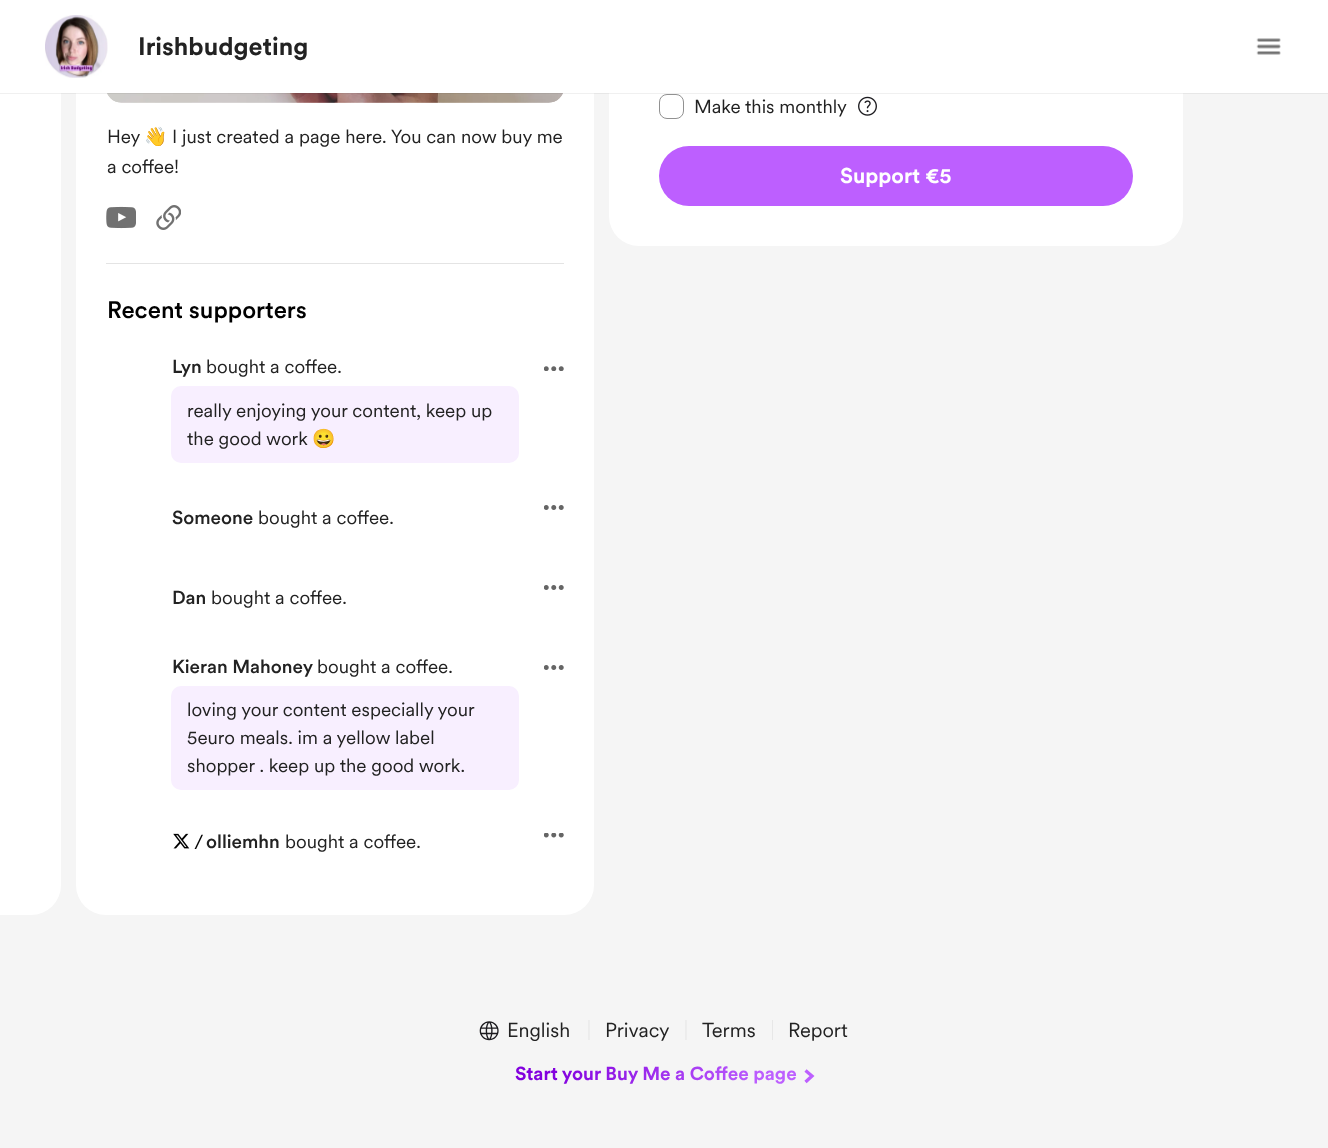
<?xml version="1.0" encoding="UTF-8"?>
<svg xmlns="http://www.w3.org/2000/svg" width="1328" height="1148">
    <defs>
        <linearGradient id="g1" gradientUnits="userSpaceOnUse" x1="533" y1="1018" x2="796" y2="1130"><stop offset="0.14" stop-color="#8200DE"/><stop offset="0.82" stop-color="#BD5FFF"/></linearGradient>
        <filter id="blur1" x="-50%" y="-200%" width="200%" height="500%"><feGaussianBlur stdDeviation="0.5"/></filter>
    </defs>
    <rect width="100%" height="100%" fill="#F5F5F5"/>
    <rect x="-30" y="-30" width="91" height="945" rx="30" fill="#FFFFFF"/>
    <rect x="76" y="-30" width="518" height="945" rx="30" fill="#FFFFFF"/>
    <image x="107" y="93" width="456" height="10" href="img_04.png"/>
    <image x="107" y="93" width="456" height="10" href="img_05.png"/>
    <rect x="609" y="-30" width="574" height="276" rx="30" fill="#FFFFFF"/>
    <rect x="659.5" y="94.5" width="24" height="24" rx="7.5" fill="none" stroke="#919191"/>
    <image x="858" y="96" width="19" height="20" href="img_12.png"/>
    <rect x="0" y="1" width="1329" height="93" fill="#000000" fill-opacity="0.06" filter="url(#blur1)"/>
    <rect x="0" y="0" width="1328" height="93" fill="#FFFFFF"/>
    <image x="45" y="15" width="63" height="63" href="img_01.png"/>
    <image x="69" y="15" width="39" height="63" href="img_02.png"/>
    <text x="138" y="55" font-family="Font" font-size="25" font-weight="700" fill="#222222">Irishbudgeting</text>
    <image x="1256" y="38" width="25" height="17" href="img_03.png"/>
    <rect x="106" y="263" width="458" height="1" fill="#E4E4E4"/>
    <text x="107" y="143" font-family="Font" font-size="18.75" fill="#222222">Hey</text>
    <text x="144" y="143" font-family="Noto Color Emoji" font-size="18.75" fill="#222222">👋</text>
    <text x="172" y="143" font-family="Font" font-size="18.75" fill="#222222">I just created a page here. You can now buy me</text>
    <text x="107" y="173" font-family="Font" font-size="18.75" fill="#222222">a coffee!</text>
    <image x="106" y="206" width="30" height="23" href="img_06.png"/>
    <image x="156" y="205" width="25" height="25" href="img_07.png"/>
    <text x="107" y="318" font-family="Font" font-size="23.75" font-weight="500" fill="#000000">Recent supporters</text>
    <text x="172" y="373" font-family="Font" font-size="18.75" font-weight="500" fill="#222222">Lyn</text>
    <text x="206" y="373" font-family="Font" font-size="18.75" fill="#222222">bought a coffee.</text>
    <rect x="171" y="386" width="348" height="77" rx="10" fill="#F8EFFF"/>
    <text font-family="Font" font-size="18.75" fill="#222222">
        <tspan x="187" y="417">really enjoying your content, keep up</tspan>
        <tspan x="187" y="445">the good work</tspan>
    </text>
    <text x="312" y="445" font-family="Noto Color Emoji" font-size="18.75" fill="#222222">😀</text>
    <image x="544" y="366" width="20" height="5" href="img_08.png"/>
    <image x="544" y="505" width="20" height="5" href="img_09.png"/>
    <text x="172" y="524" font-family="Font" font-size="18.75" font-weight="500" fill="#222222">Someone</text>
    <text x="258" y="524" font-family="Font" font-size="18.75" fill="#222222">bought a coffee.</text>
    <image x="544" y="585" width="20" height="5" href="img_09.png"/>
    <text x="172" y="604" font-family="Font" font-size="18.75" font-weight="500" fill="#222222">Dan</text>
    <text x="211" y="604" font-family="Font" font-size="18.75" fill="#222222">bought a coffee.</text>
    <text x="172" y="673" font-family="Font" font-size="18.75" font-weight="500" fill="#222222">Kieran Mahoney</text>
    <text x="317" y="673" font-family="Font" font-size="18.75" fill="#222222">bought a coffee.</text>
    <rect x="171" y="686" width="348" height="104" rx="10" fill="#F8EFFF"/>
    <text font-family="Font" font-size="18.75" fill="#222222">
        <tspan x="187" y="716">loving your content especially your</tspan>
        <tspan x="187" y="744">5euro meals. im a yellow label</tspan>
        <tspan x="187" y="772">shopper . keep up the good work.</tspan>
    </text>
    <image x="544" y="665" width="20" height="5" href="img_09.png"/>
    <image x="173" y="833" width="17" height="16" href="img_10.png"/>
    <text x="194" y="849" font-family="Font" font-size="20" fill="#000000">/</text>
    <text x="206" y="848" font-family="Font" font-size="18.75" font-weight="500" fill="#222222">olliemhn</text>
    <text x="285" y="848" font-family="Font" font-size="18.75" fill="#222222">bought a coffee.</text>
    <image x="544" y="833" width="20" height="5" href="img_11.png"/>
    <text x="694" y="113" font-family="Font" font-size="18.75" fill="#222222">Make this monthly</text>
    <rect x="659" y="146" width="474" height="60" rx="30" fill="#BD5FFF"/>
    <text x="840" y="183" font-family="Font" font-size="21.25" font-weight="700" fill="#FFFFFF">Support €5</text>
    <image x="479" y="1021" width="20" height="20" href="img_13.png"/>
    <text x="507" y="1037" font-family="Font" font-size="20" fill="#222222">English</text>
    <path d="M 589 1020 V 1040" fill="none" stroke="#E7E7E7" stroke-width="1.2"/>
    <text x="605" y="1037" font-family="Font" font-size="20" fill="#222222">Privacy</text>
    <path d="M 686 1020 V 1040" fill="none" stroke="#E7E7E7" stroke-width="1.2"/>
    <text x="702" y="1037" font-family="Font" font-size="20" fill="#222222">Terms</text>
    <rect x="772" y="1020" width="1" height="20" fill="#E7E7E7"/>
    <text x="788" y="1037" font-family="Font" font-size="20" fill="#222222">Report</text>
    <text x="515" y="1080" font-family="Font" font-size="18.75" font-weight="700" fill="url(#g1)">Start your Buy Me a Coffee page</text>
    <path d="M 805.5 1070.5 L 812 1076 L 805.5 1082" fill="none" stroke="#BD5FFF" stroke-width="3.3"/>
</svg>
